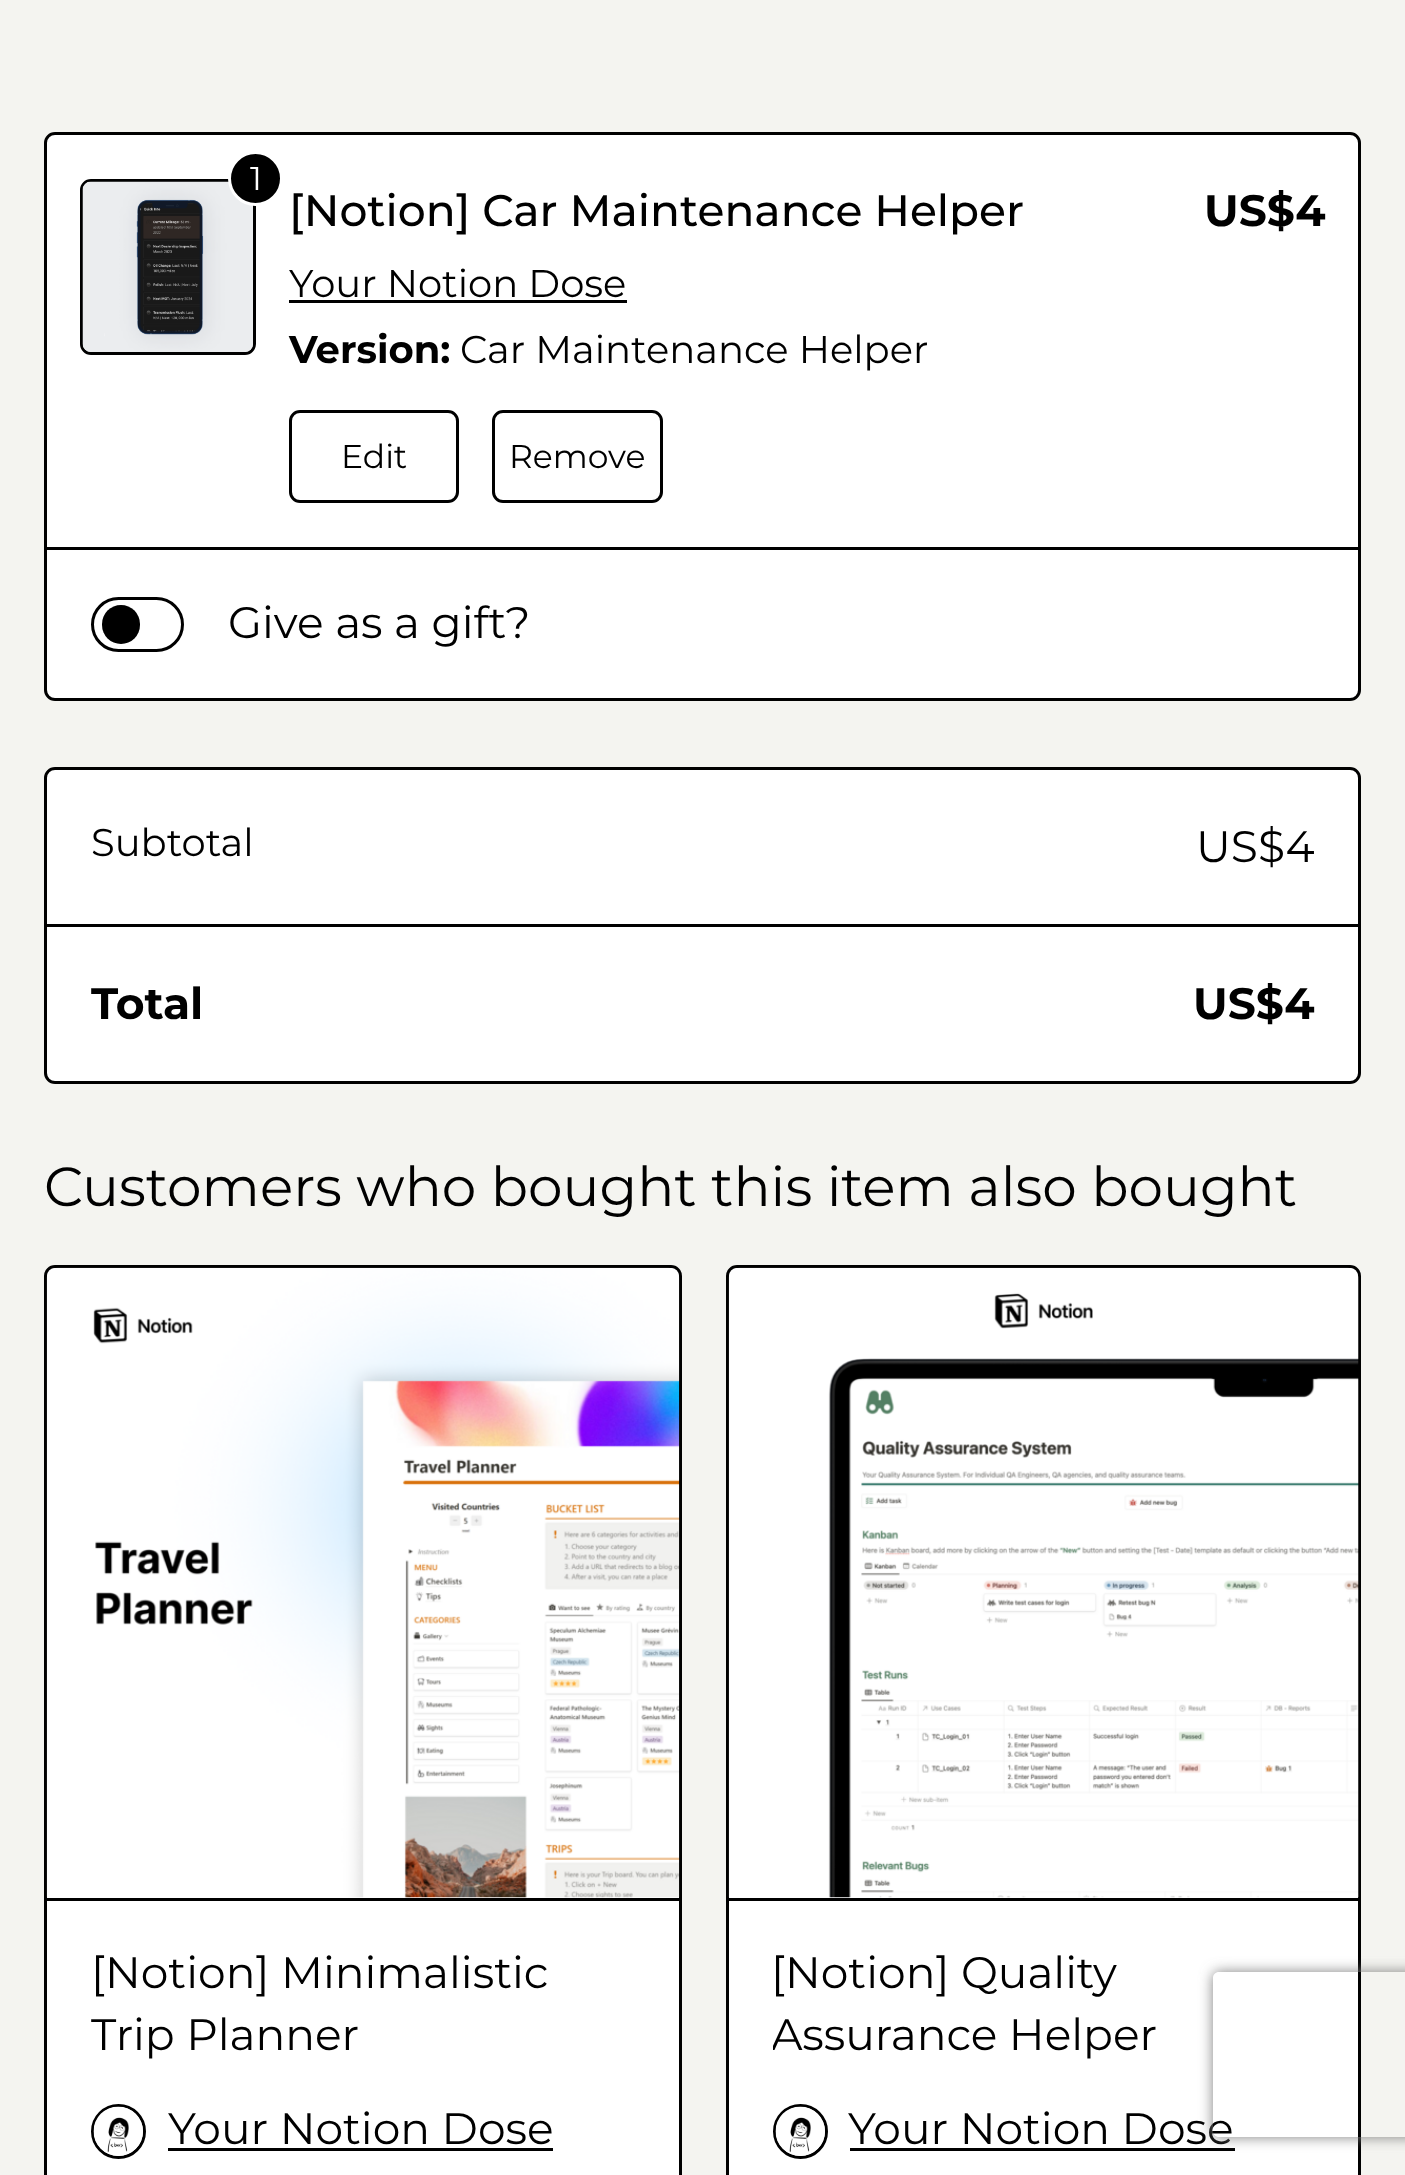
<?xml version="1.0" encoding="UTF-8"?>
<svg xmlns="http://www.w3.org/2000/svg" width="1405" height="2175">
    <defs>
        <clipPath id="clip1"><rect x="773" y="1944" width="542" height="124"/></clipPath>
        <clipPath id="clip2"><path d="M 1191 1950 H 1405 V 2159 H 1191 Z M 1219 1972 H 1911 C 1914.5 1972 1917 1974.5 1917 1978 V 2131 C 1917 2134.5 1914.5 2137 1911 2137 H 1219 C 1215.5 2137 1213 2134.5 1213 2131 V 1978 C 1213 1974.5 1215.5 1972 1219 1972 Z" clip-rule="evenodd"/></clipPath>
        <filter id="blur1" x="-50%" y="-200%" width="200%" height="500%"><feGaussianBlur stdDeviation="7"/></filter>
    </defs>
    <rect width="100%" height="100%" fill="#F4F4F0"/>
    <rect x="45.5" y="133.5" width="1314" height="566" rx="9.5" fill="#FFFFFF" stroke="#000000" stroke-width="3"/>
    <rect x="81.5" y="180.5" width="173" height="173" rx="9.5" fill="none" stroke="#000000" stroke-width="3"/>
    <image x="82" y="181" width="171" height="171" href="img_01.png"/>
    <circle cx="255.5" cy="178.5" r="26" fill="#000000" stroke="#FFFFFF" stroke-width="3"/>
    <text x="250" y="190" font-family="Montserrat" font-size="33" fill="#FFFFFF">1</text>
    <text x="289" y="226" font-family="Montserrat" font-size="44" font-weight="500" fill="#000000">[Notion] Car Maintenance Helper</text>
    <text x="289" y="297" font-family="Montserrat" font-size="38.5" fill="#000000">Your Notion Dose</text>
    <rect x="289" y="300" width="338" height="3" fill="#000000"/>
    <text x="289" y="363" font-family="Montserrat" font-size="38.5" font-weight="700" fill="#000000">Version:</text>
    <text x="460" y="363" font-family="Montserrat" font-size="38.5" fill="#000000">Car Maintenance Helper</text>
    <rect x="290.5" y="411.5" width="167" height="90" rx="9.5" fill="none" stroke="#000000" stroke-width="3"/>
    <text x="341" y="468" font-family="Montserrat" font-size="33" fill="#000000">Edit</text>
    <rect x="493.5" y="411.5" width="168" height="90" rx="9.5" fill="none" stroke="#000000" stroke-width="3"/>
    <text x="509" y="468" font-family="Montserrat" font-size="33" fill="#000000">Remove</text>
    <text x="1204" y="226" font-family="Montserrat" font-size="44" font-weight="700" fill="#000000">US$4</text>
    <rect x="47" y="547" width="1312" height="3" fill="#000000"/>
    <rect x="92.5" y="598.5" width="90" height="52" rx="26" fill="none" stroke="#000000" stroke-width="3"/>
    <rect x="102" y="605" width="38" height="39" rx="19" fill="#000000"/>
    <text x="228" y="638" font-family="Montserrat" font-size="44" fill="#000000">Give as a gift?</text>
    <rect x="45.5" y="768.5" width="1314" height="314" rx="9.5" fill="#FFFFFF" stroke="#000000" stroke-width="3"/>
    <text x="91" y="856" font-family="Montserrat" font-size="38.5" fill="#000000">Subtotal</text>
    <text x="1196" y="862" font-family="Montserrat" font-size="44" fill="#000000">US$4</text>
    <rect x="47" y="924" width="1312" height="3" fill="#000000"/>
    <text x="91" y="1019" font-family="Montserrat" font-size="44" font-weight="700" fill="#000000">Total</text>
    <text x="1193" y="1019" font-family="Montserrat" font-size="44" font-weight="700" fill="#000000">US$4</text>
    <text x="44" y="1206" font-family="Montserrat" font-size="55" fill="#000000">Customers who bought this item also bought</text>
    <path d="M 55 1265 H 671 C 677 1265 682 1270 682 1276 V 2175 H 44 V 1276 C 44 1270 49 1265 55 1265 Z" fill="#FFFFFF"/>
    <rect x="45.5" y="1266.5" width="635" height="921" rx="9.5" fill="none" stroke="#000000" stroke-width="3"/>
    <rect x="47" y="1898" width="632" height="3" fill="#000000"/>
    <image x="46" y="1267" width="634" height="631" href="img_02.png"/>
    <text font-family="Montserrat" font-size="44" fill="#000000">
        <tspan x="91" y="1988">[Notion] Minimalistic</tspan>
        <tspan x="91" y="2050">Trip Planner</tspan>
    </text>
    <circle cx="118.5" cy="2131.5" r="26" fill="none" stroke="#000000" stroke-width="3"/>
    <image x="93" y="2106" width="50" height="50" href="img_03.png"/>
    <text x="168" y="2144" font-family="Montserrat" font-size="44" fill="#000000">Your Notion Dose</text>
    <rect x="168" y="2148" width="385" height="3" fill="#000000"/>
    <path d="M 737 1265 H 1350 C 1356 1265 1361 1270 1361 1276 V 2175 H 726 V 1276 C 726 1270 731 1265 737 1265 Z" fill="#FFFFFF"/>
    <rect x="727.5" y="1266.5" width="632" height="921" rx="9.5" fill="none" stroke="#000000" stroke-width="3"/>
    <rect x="729" y="1898" width="630" height="3" fill="#000000"/>
    <image x="728" y="1267" width="631" height="631" href="img_04.png"/>
    <text x="771" y="1988" font-family="Montserrat" font-size="44" fill="#000000">[Notion] Quality</text>
    <g clip-path="url(#clip1)">
        <text x="771" y="2050" font-family="Montserrat" font-size="44" fill="#000000">Assurance Helper</text>
    </g>
    <circle cx="800.5" cy="2131.5" r="26" fill="none" stroke="#000000" stroke-width="3"/>
    <image x="775" y="2106" width="50" height="50" href="img_03.png"/>
    <text x="848" y="2144" font-family="Montserrat" font-size="44" fill="#000000">Your Notion Dose</text>
    <rect x="850" y="2148" width="385" height="3" fill="#000000"/>
    <g clip-path="url(#clip2)">
        <rect x="1213" y="1972" width="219" height="165" rx="6" fill="#808080" filter="url(#blur1)"/>
    </g>
</svg>
